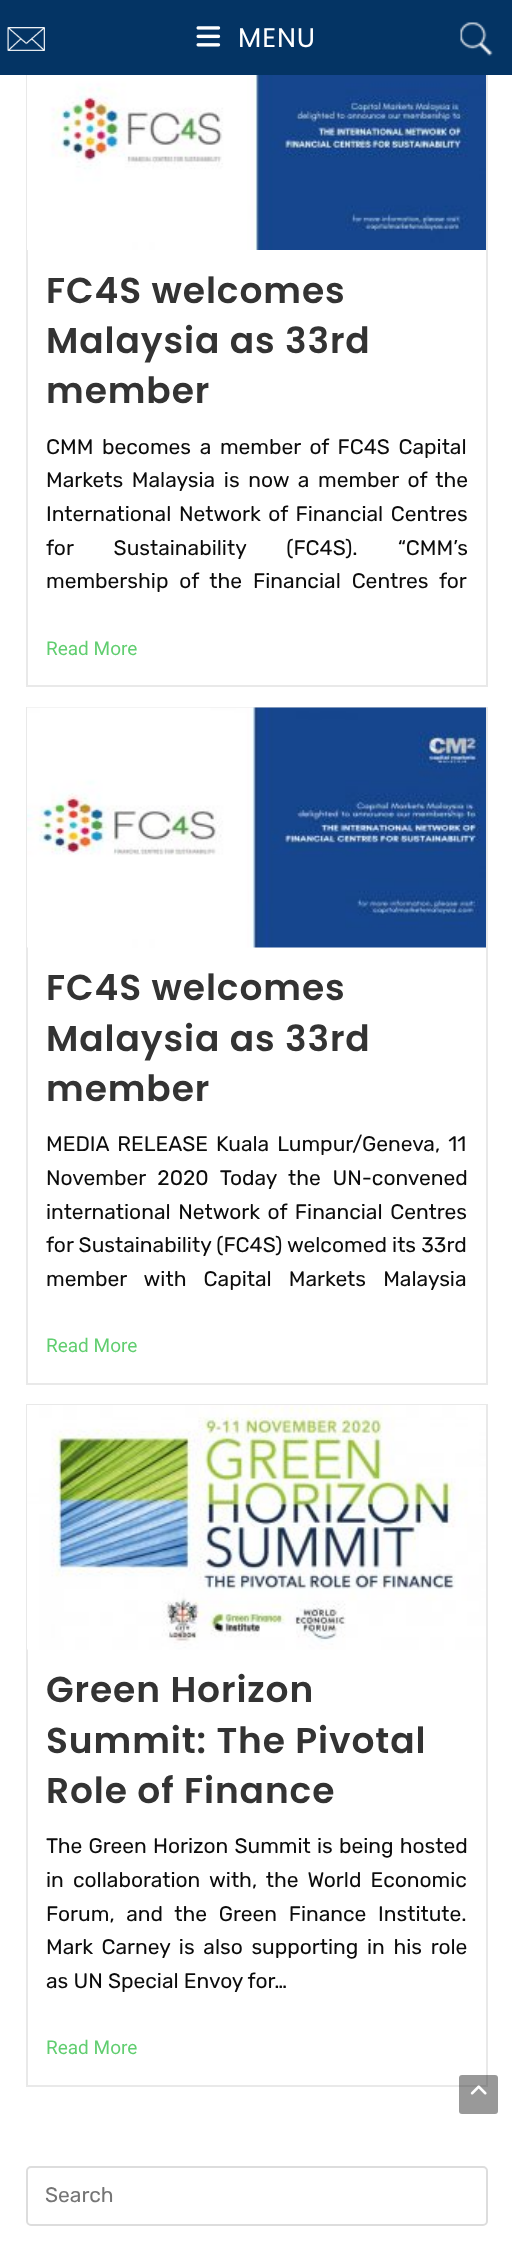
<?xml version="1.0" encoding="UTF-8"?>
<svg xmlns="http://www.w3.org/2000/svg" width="512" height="2248">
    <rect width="100%" height="100%" fill="#FFFFFF"/>
    <rect x="27" y="10" width="460" height="676" fill="none" stroke="#E9E9E9" stroke-width="2"/>
    <rect x="0" y="0" width="512" height="75" fill="#043464"/>
    <image x="7" y="27" width="38" height="24" href="img_01.png"/>
    <image x="196" y="26" width="25" height="21" href="img_02.png"/>
    <text x="238" y="47" font-family="Poppins" font-size="27" letter-spacing="0.9" fill="#FFFFFF">MENU</text>
    <image x="460" y="22" width="33" height="34" href="img_03.png"/>
    <image x="27" y="75" width="459" height="175" href="img_04.png"/>
    <text font-family="Poppins" font-size="36" font-weight="600" letter-spacing="0.9" fill="#333333">
        <tspan x="46" y="303">FC4S welcomes</tspan>
        <tspan x="46" y="353">Malaysia as 33rd</tspan>
        <tspan x="46" y="403">member</tspan>
    </text>
    <text font-family="Rubik" font-size="21" fill="#0C0C0C">
        <tspan x="46" y="454" word-spacing="3.5">CMM becomes a member of FC4S Capital</tspan>
        <tspan x="46" y="487" word-spacing="3.5">Markets Malaysia is now a member of the</tspan>
        <tspan x="46" y="521" word-spacing="2.5">International Network of Financial Centres</tspan>
        <tspan x="46" y="555" word-spacing="35">for Sustainability (FC4S). “CMM’s</tspan>
        <tspan x="46" y="588" word-spacing="5.75">membership of the Financial Centres for</tspan>
    </text>
    <text x="46" y="655" font-family="Roboto" font-size="19" fill="#61CE70">Read More</text>
    <rect x="27" y="708" width="460" height="676" fill="none" stroke="#E9E9E9" stroke-width="2"/>
    <image x="27" y="707" width="459" height="241" href="img_05.png"/>
    <text font-family="Poppins" font-size="36" font-weight="600" letter-spacing="0.9" fill="#333333">
        <tspan x="46" y="1000">FC4S welcomes</tspan>
        <tspan x="46" y="1051">Malaysia as 33rd</tspan>
        <tspan x="46" y="1101">member</tspan>
    </text>
    <text font-family="Rubik" font-size="21" fill="#0C0C0C">
        <tspan x="46" y="1151" word-spacing="3">MEDIA RELEASE Kuala Lumpur/Geneva, 11</tspan>
        <tspan x="46" y="1185" word-spacing="6.5">November 2020 Today the UN-convened</tspan>
        <tspan x="46" y="1219" word-spacing="2.5">international Network of Financial Centres</tspan>
        <tspan x="46" y="1252">for Sustainability (FC4S) welcomed its 33rd</tspan>
        <tspan x="46" y="1286" word-spacing="12">member with Capital Markets Malaysia</tspan>
    </text>
    <text x="46" y="1352" font-family="Roboto" font-size="19" fill="#61CE70">Read More</text>
    <rect x="27" y="1405" width="460" height="681" fill="none" stroke="#E9E9E9" stroke-width="2"/>
    <image x="27" y="1405" width="459" height="245" href="img_06.png"/>
    <text font-family="Poppins" font-size="36" font-weight="600" letter-spacing="0.9" fill="#333333">
        <tspan x="46" y="1702">Green Horizon</tspan>
        <tspan x="46" y="1753">Summit: The Pivotal</tspan>
        <tspan x="46" y="1803">Role of Finance</tspan>
    </text>
    <text font-family="Rubik" font-size="21" fill="#0C0C0C">
        <tspan x="46" y="1853" word-spacing="1">The Green Horizon Summit is being hosted</tspan>
        <tspan x="46" y="1887" word-spacing="4">in collaboration with, the World Economic</tspan>
        <tspan x="46" y="1921" word-spacing="6.5">Forum, and the Green Finance Institute.</tspan>
        <tspan x="46" y="1954" word-spacing="3.5">Mark Carney is also supporting in his role</tspan>
        <tspan x="46" y="1988">as UN Special Envoy for…</tspan>
    </text>
    <text x="46" y="2054" font-family="Roboto" font-size="19" fill="#61CE70">Read More</text>
    <rect x="27" y="2167" width="460" height="58" rx="4" fill="none" stroke="#DDDDDD" stroke-width="2"/>
    <text x="45" y="2202" font-family="Rubik" font-size="21" fill="#757575">Search</text>
    <rect x="459" y="2075" width="39" height="39" rx="3" fill="#000000" fill-opacity="0.4"/>
    <image x="470" y="2085" width="17" height="10" href="img_07.png"/>
</svg>
